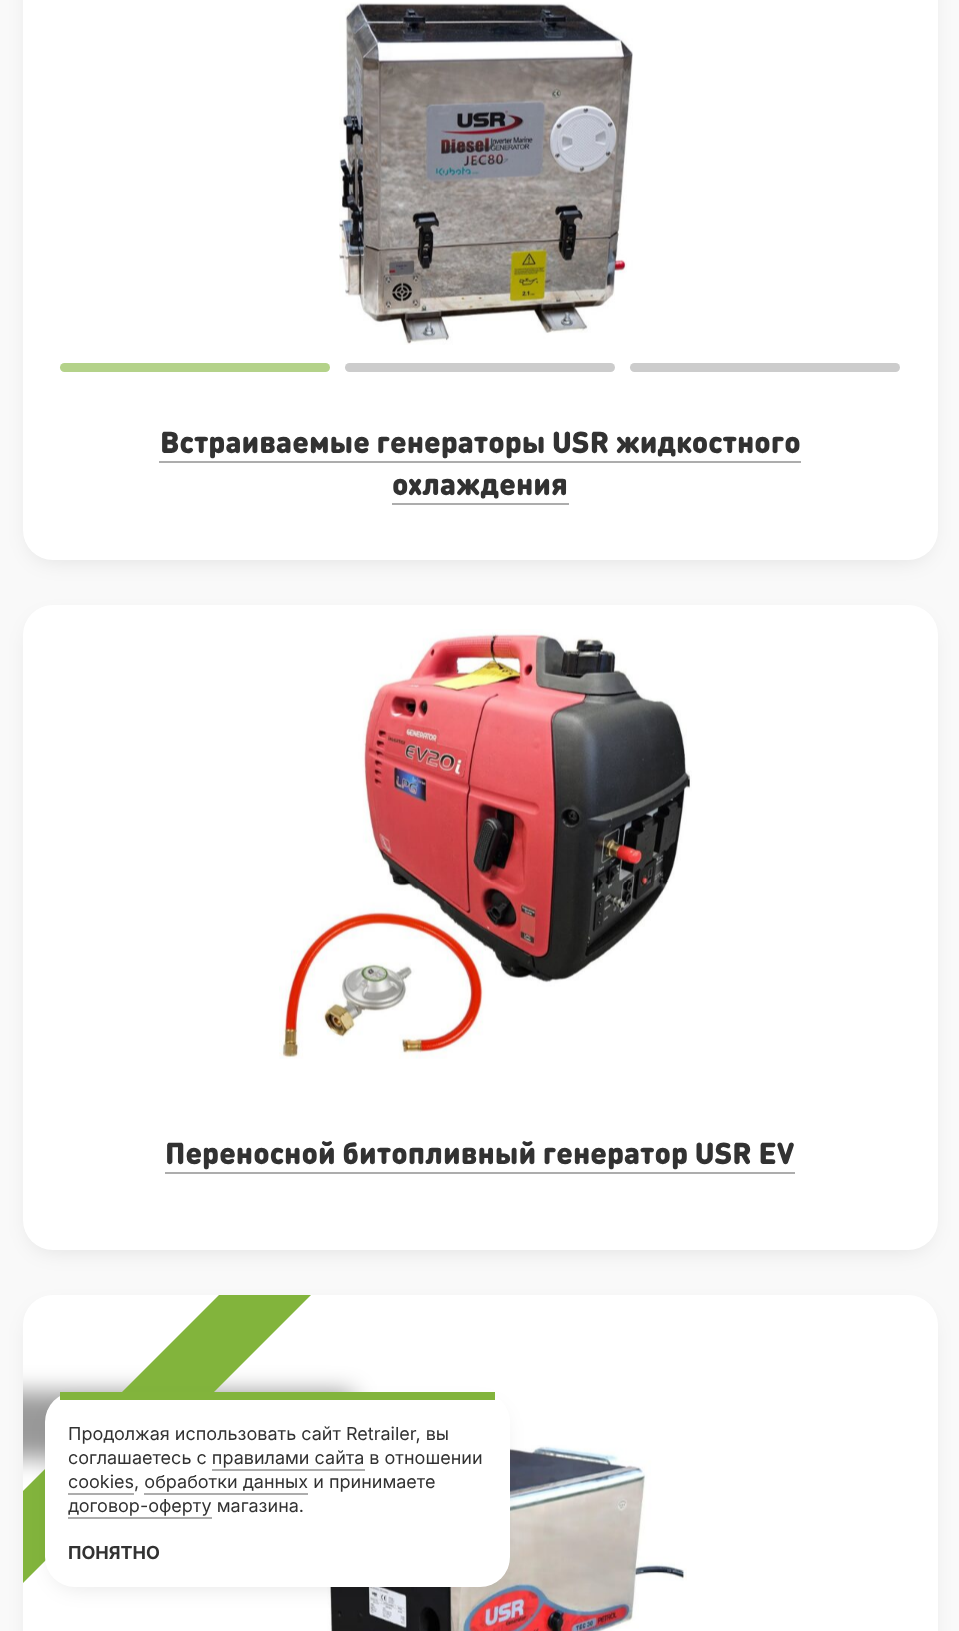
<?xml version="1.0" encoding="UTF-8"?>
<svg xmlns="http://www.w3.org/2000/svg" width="959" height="1631">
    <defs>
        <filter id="blur1" x="-50%" y="-200%" width="200%" height="500%"><feGaussianBlur stdDeviation="11"/></filter>
        <clipPath id="clip1"><rect x="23" y="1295" width="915" height="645" rx="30"/></clipPath>
        <filter id="blur2" x="-50%" y="-200%" width="200%" height="500%"><feGaussianBlur stdDeviation="11.5"/></filter>
    </defs>
    <rect width="100%" height="100%" fill="#F9F9F9"/>
    <rect x="30" y="-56" width="900" height="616" rx="23" fill="#000000" fill-opacity="0.1" filter="url(#blur1)"/>
    <rect x="23" y="-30" width="915" height="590" rx="30" fill="#FFFFFF"/>
    <image x="339" y="2" width="294" height="343" href="img_01.png"/>
    <rect x="60" y="363" width="270" height="9" rx="4.5" fill="#B4D28A"/>
    <rect x="345" y="363" width="270" height="9" rx="4.5" fill="#CCCCCC"/>
    <rect x="630" y="363" width="270" height="9" rx="4.5" fill="#CCCCCC"/>
    <text x="160" y="453" font-family="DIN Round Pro" font-size="30" font-weight="900" fill="#323232">Встраиваемые генераторы USR жидкостного</text>
    <rect x="159" y="461" width="642" height="2" fill="#ADADAD"/>
    <text x="392" y="495" font-family="DIN Round Pro" font-size="30" font-weight="900" fill="#323232">охлаждения</text>
    <rect x="392" y="503" width="177" height="2" fill="#ADADAD"/>
    <rect x="30" y="620" width="900" height="630" rx="23" fill="#000000" fill-opacity="0.1" filter="url(#blur1)"/>
    <rect x="23" y="605" width="915" height="645" rx="30" fill="#FFFFFF"/>
    <image x="279" y="629" width="413" height="430" href="img_02.png"/>
    <text x="165" y="1164" font-family="DIN Round Pro" font-size="30" font-weight="900" fill="#323232">Переносной битопливный генератор USR EV</text>
    <rect x="165" y="1172" width="630" height="2" fill="#ADADAD"/>
    <rect x="30" y="1310" width="900" height="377" rx="23" fill="#000000" fill-opacity="0.1" filter="url(#blur1)"/>
    <rect x="23" y="1295" width="915" height="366" rx="30" fill="#FFFFFF"/>
    <image x="308" y="1445" width="379" height="186" href="img_03.png"/>
    <g clip-path="url(#clip1)">
        <rect x="-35" y="1392" width="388" height="66" fill="#000000" fill-opacity="0.4" filter="url(#blur2)"/>
    </g>
    <path d="M 311 1295 L 23 1583 V 1491 L 219 1295 Z" fill="#82B43C"/>
    <rect x="53" y="1407" width="450" height="180" rx="23" fill="#000000" fill-opacity="0.1" filter="url(#blur1)"/>
    <rect x="45" y="1392" width="465" height="195" rx="30" fill="#FFFFFF"/>
    <rect x="60" y="1392" width="435" height="8" fill="#82B43C"/>
    <text font-family="Inter" font-size="18" fill="#323232">
        <tspan x="68" y="1440">Продолжая использовать сайт Retrailer, вы</tspan>
        <tspan x="68" y="1464">соглашаетесь с правилами сайта в отношении</tspan>
    </text>
    <rect x="212" y="1469" width="153" height="2" fill="#ADADAD"/>
    <text x="68" y="1488" font-family="Inter" font-size="18" fill="#323232">cookies, обработки данных и принимаете</text>
    <rect x="68" y="1493" width="66" height="2" fill="#ADADAD"/>
    <rect x="144" y="1493" width="164" height="2" fill="#ADADAD"/>
    <text x="68" y="1512" font-family="Inter" font-size="18" fill="#323232">договор-оферту магазина.</text>
    <rect x="68" y="1517" width="144" height="2" fill="#ADADAD"/>
    <text x="68" y="1559" font-family="Inter" font-size="18" font-weight="700" fill="#323232">ПОНЯТНО</text>
</svg>
